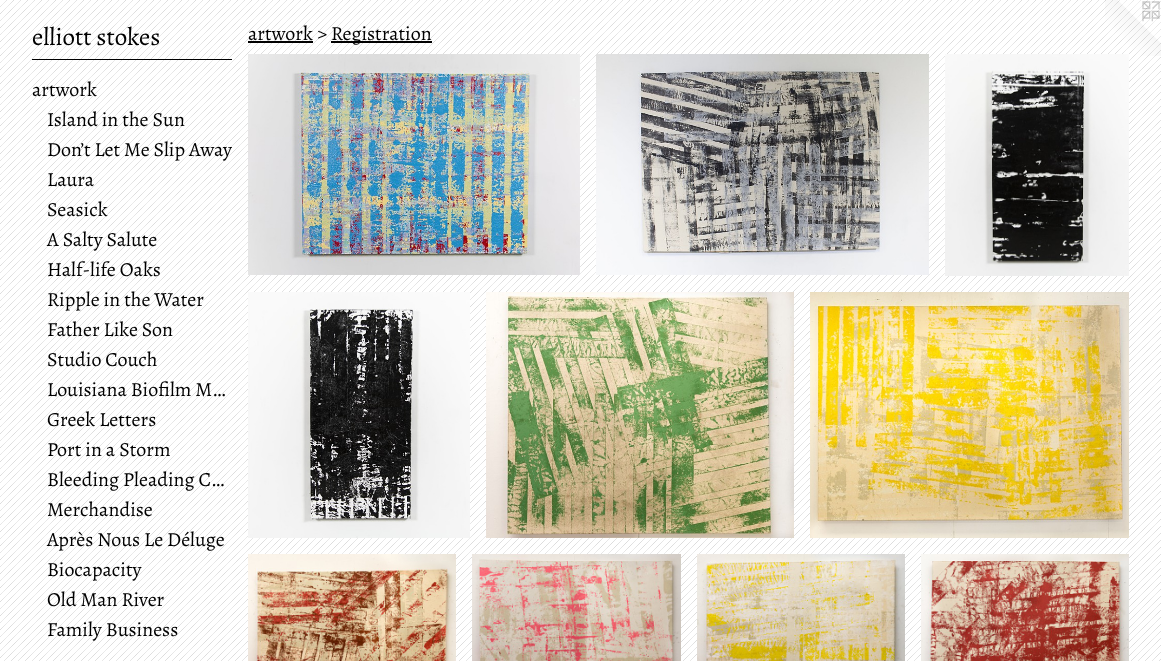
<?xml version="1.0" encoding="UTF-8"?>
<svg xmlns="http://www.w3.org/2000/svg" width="1161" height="661">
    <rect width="100%" height="100%" fill="#FFFFFF"/>
    <image x="0" y="0" width="1161" height="661" href="img_01.png"/>
    <text x="32" y="45" font-family="Alegreya" font-size="25" fill="#000000">elliott stokes</text>
    <rect x="32" y="59" width="200" height="1" fill="#000000"/>
    <text x="32" y="96" font-family="Alegreya" font-size="20" fill="#000000">artwork</text>
    <text font-family="Alegreya" font-size="20" fill="#000000">
        <tspan x="47" y="126">Island in the Sun</tspan>
        <tspan x="47" y="156">Don’t Let Me Slip Away</tspan>
        <tspan x="47" y="186">Laura</tspan>
        <tspan x="47" y="216">Seasick</tspan>
        <tspan x="47" y="246">A Salty Salute</tspan>
        <tspan x="47" y="276">Half-life Oaks</tspan>
        <tspan x="47" y="306">Ripple in the Water</tspan>
        <tspan x="47" y="336">Father Like Son</tspan>
        <tspan x="47" y="366">Studio Couch</tspan>
        <tspan x="47" y="396">Louisiana Biofilm M…</tspan>
        <tspan x="47" y="426">Greek Letters</tspan>
        <tspan x="47" y="456">Port in a Storm</tspan>
        <tspan x="47" y="486">Bleeding Pleading C…</tspan>
        <tspan x="47" y="516">Merchandise</tspan>
        <tspan x="47" y="546">Après Nous Le Déluge</tspan>
        <tspan x="47" y="576">Biocapacity</tspan>
        <tspan x="47" y="606">Old Man River</tspan>
        <tspan x="47" y="636">Family Business</tspan>
    </text>
    <text x="248" y="40" font-family="Alegreya" font-size="20" fill="#000000">artwork &gt;</text>
    <rect x="248" y="41" width="65" height="2" fill="#000000"/>
    <rect x="331" y="41" width="101" height="2" fill="#000000"/>
    <text x="331" y="40" font-family="Alegreya" font-size="20" fill="#000000">Registration</text>
    <image x="248" y="54" width="332" height="221" href="img_02.png"/>
    <image x="596" y="54" width="333" height="221" href="img_03.png"/>
    <image x="1105" y="0" width="56" height="56" href="img_12.png"/>
    <image x="945" y="54" width="184" height="222" href="img_04.png"/>
    <image x="248" y="292" width="222" height="246" href="img_05.png"/>
    <image x="486" y="292" width="308" height="246" href="img_06.png"/>
    <image x="810" y="292" width="319" height="246" href="img_07.png"/>
    <image x="248" y="554" width="208" height="107" href="img_08.png"/>
    <image x="472" y="554" width="209" height="107" href="img_09.png"/>
    <image x="697" y="554" width="208" height="107" href="img_10.png"/>
    <image x="921" y="554" width="208" height="107" href="img_11.png"/>
</svg>
